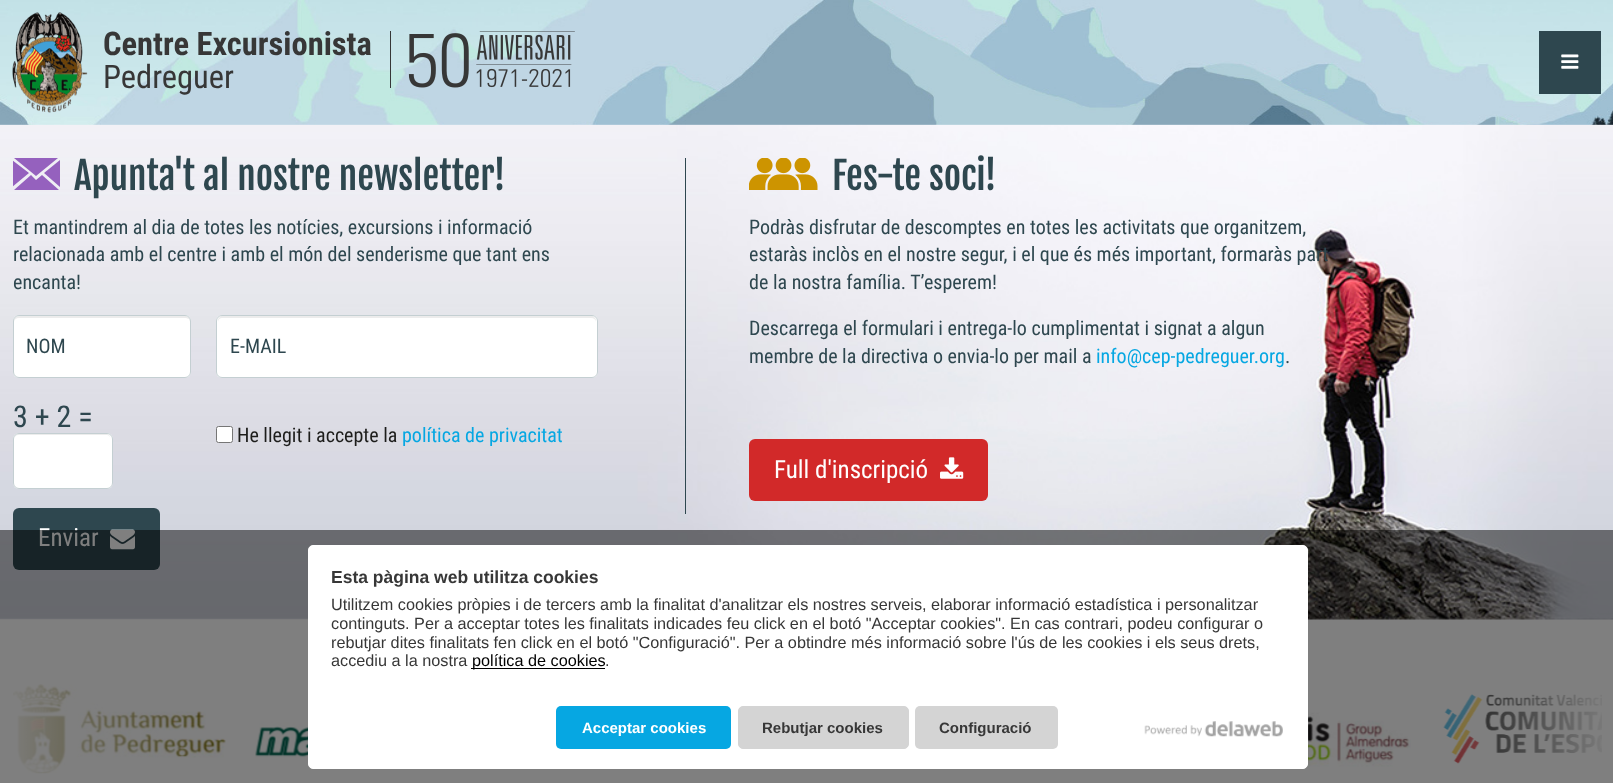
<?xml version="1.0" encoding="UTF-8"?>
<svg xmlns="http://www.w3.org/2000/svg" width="1613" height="783">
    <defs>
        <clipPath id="clip1"><rect x="13" y="158" width="47" height="32"/></clipPath>
        <linearGradient id="g1" gradientUnits="userSpaceOnUse" x1="0" y1="729" x2="213" y2="729"><stop offset="0" stop-color="#FFFFFF"/><stop offset="1" stop-color="#FFFFFF" stop-opacity="0"/></linearGradient>
        <linearGradient id="g2" gradientUnits="userSpaceOnUse" x1="1401" y1="729" x2="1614" y2="729"><stop offset="0" stop-color="#FFFFFF" stop-opacity="0"/><stop offset="1" stop-color="#FFFFFF"/></linearGradient>
    </defs>
    <rect width="100%" height="100%" fill="#FFFFFF"/>
    <image x="0" y="124" width="1613" height="496" href="img_05.png"/>
    <image x="547" y="124" width="1066" height="496" href="img_06.png"/>
    <image x="0" y="0" width="1613" height="125" href="img_01.png"/>
    <image x="12" y="12" width="76" height="101" href="img_02.png"/>
    <text x="103" y="55" font-family="Roboto Condensed" font-size="32.5" font-weight="700" fill="#373737">Centre Excursionista</text>
    <text x="103" y="88" font-family="Roboto Condensed" font-size="32.5" fill="#373737">Pedreguer</text>
    <image x="390" y="31" width="185" height="57" href="img_03.png"/>
    <rect x="1539" y="31" width="62" height="63" fill="#2E474F"/>
    <image x="1561" y="54" width="18" height="15" href="img_04.png"/>
    <g clip-path="url(#clip1)">
        <path d="M 29 173 L 12 160 V 187 Z M 14 158 L 36 176 L 58 158 Z M 44 173 L 60 187 V 160 Z M 42 175 L 36 180 L 31 175 L 14 190 H 59 Z" fill="#9561BE"/>
    </g>
    <text x="74" y="190" font-family="Fjalla One" font-size="37.5" fill="#2E474F">Apunta't al nostre newsletter!</text>
    <text font-family="Roboto Condensed" font-size="20" fill="#2E474F">
        <tspan x="13" y="234">Et mantindrem al dia de totes les notícies, excursions i informació</tspan>
        <tspan x="13" y="261">relacionada amb el centre i amb el món del senderisme que tant ens</tspan>
        <tspan x="13" y="289">encanta!</tspan>
    </text>
    <rect x="13" y="315" width="178" height="63" rx="6" fill="#FFFFFF"/>
    <path d="M 19 318 H 186 L 189 319 L 190 322 C 190 319 189 317 186 316 H 19 C 16 316 14 319 14 322 C 14 320 16 318 19 318 Z" fill="#ECECEC"/>
    <rect x="13.5" y="315.5" width="177" height="62" rx="5.5" fill="none" stroke="#C4CFD2"/>
    <text x="26" y="353" font-family="Roboto Condensed" font-size="20" fill="#2E474F">NOM</text>
    <rect x="216" y="315" width="382" height="63" rx="6" fill="#FFFFFF"/>
    <path d="M 222 318 H 591 C 594 318 596 320 596 322 V 321 C 596 318 594 316 591 316 H 223 C 220 316 218 318 218 321 V 322 C 218 320 220 318 222 318 Z" fill="#ECECEC"/>
    <rect x="216.5" y="315.5" width="381" height="62" rx="5.5" fill="none" stroke="#C4CFD2"/>
    <text x="230" y="353" font-family="Roboto Condensed" font-size="20" fill="#2E474F">E-MAIL</text>
    <text x="13" y="427" font-family="Roboto Condensed" font-size="30" fill="#2E474F">3 + 2 =</text>
    <rect x="13" y="433" width="100" height="56" rx="6" fill="#FFFFFF"/>
    <path d="M 19 435 H 106 C 109 435 111 437 111 440 C 111 430 97 434 92 434 H 34 C 28 434 14 430 14 440 C 14 437 16 435 19 435 Z" fill="#ECECEC"/>
    <rect x="13.5" y="433.5" width="99" height="55" rx="5.5" fill="none" stroke="#C4CFD2"/>
    <rect x="216.5" y="426.5" width="16" height="16" rx="2" fill="#FFFFFF" stroke="#767676"/>
    <text x="237" y="442" font-family="Roboto Condensed" font-size="20" fill="#1D1D1B">He llegit i accepte la</text>
    <text x="402" y="442" font-family="Roboto Condensed" font-size="20" fill="#06A7E2">política de privacitat</text>
    <rect x="13" y="508" width="147" height="62" rx="6" fill="#2E474F"/>
    <text x="38" y="546" font-family="Roboto Condensed" font-size="25" fill="#FFFFFF">Enviar</text>
    <image x="110" y="529" width="25" height="21" href="img_07.png"/>
    <rect x="685" y="158" width="1" height="356" fill="#2E474F"/>
    <image x="749" y="158" width="69" height="32" href="img_08.png"/>
    <text x="832" y="190" font-family="Fjalla One" font-size="37.5" fill="#2E474F">Fes-te soci!</text>
    <text font-family="Roboto Condensed" font-size="20" fill="#2E474F">
        <tspan x="749" y="234">Podràs disfrutar de descomptes en totes les activitats que organitzem,</tspan>
        <tspan x="749" y="261">estaràs inclòs en el nostre segur, i el que és més important, formaràs part</tspan>
        <tspan x="749" y="289">de la nostra família. T’esperem!</tspan>
    </text>
    <text font-family="Roboto Condensed" font-size="20" fill="#2E474F">
        <tspan x="749" y="335">Descarrega el formulari i entrega-lo cumplimentat i signat a algun</tspan>
        <tspan x="749" y="363">membre de la directiva o envia-lo per mail a</tspan>
    </text>
    <text x="1096" y="363" font-family="Roboto Condensed" font-size="20" fill="#06A7E2">info@cep-pedreguer.org</text>
    <text x="1285" y="363" font-family="Roboto Condensed" font-size="20" fill="#2E474F">.</text>
    <rect x="749" y="439" width="239" height="62" rx="6" fill="#D22929"/>
    <text x="774" y="478" font-family="Roboto Condensed" font-size="25" fill="#FFFFFF">Full d'inscripció</text>
    <image x="940" y="457" width="24" height="22" href="img_09.png"/>
    <image x="13" y="684" width="213" height="90" href="img_11.png"/>
    <image x="255" y="693" width="54" height="74" href="img_12.png"/>
    <image x="1307" y="687" width="104" height="80" href="img_13.png"/>
    <image x="1443" y="694" width="159" height="70" href="img_14.png"/>
    <rect x="13" y="684" width="195" height="90" fill="url(#g1)"/>
    <rect x="1406" y="694" width="196" height="70" fill="url(#g2)"/>
    <rect x="0" y="530" width="1613" height="253" fill="#000000" fill-opacity="0.5"/>
    <rect x="308.5" y="545.5" width="999" height="223" rx="4.5" fill="#FFFFFF" stroke="#FFFFFF"/>
    <text x="331" y="583" font-family="Liberation Sans" font-size="17.5" font-weight="700" fill="#373737">Esta pàgina web utilitza cookies</text>
    <text font-family="Liberation Sans" font-size="16.25" fill="#373737">
        <tspan x="331" y="610">Utilitzem cookies pròpies i de tercers amb la finalitat d'analitzar els nostres serveis, elaborar informació estadística i personalitzar</tspan>
        <tspan x="331" y="629">continguts. Per a acceptar totes les finalitats indicades feu click en el botó "Acceptar cookies". En cas contrari, podeu configurar o</tspan>
        <tspan x="331" y="648">rebutjar dites finalitats fen click en el botó "Configuració". Per a obtindre més informació sobre l'ús de les cookies i els seus drets,</tspan>
        <tspan x="331" y="666">accediu a la nostra</tspan>
    </text>
    <rect x="471" y="668" width="134" height="1" fill="#000000"/>
    <text x="472" y="666" font-family="Liberation Sans" font-size="16.25" fill="#000000">política de cookies</text>
    <text x="605" y="666" font-family="Liberation Sans" font-size="16.25" fill="#373737">.</text>
    <rect x="556" y="706" width="175" height="43" rx="5" fill="#06A7E2"/>
    <text x="582" y="733" font-family="Liberation Sans" font-size="15" font-weight="700" fill="#FFFFFF">Acceptar cookies</text>
    <rect x="738.5" y="706.5" width="170" height="42" rx="4.5" fill="#D4D4D4" stroke="#D4D4D4"/>
    <text x="762" y="733" font-family="Liberation Sans" font-size="15" font-weight="700" fill="#373737">Rebutjar cookies</text>
    <rect x="915" y="706" width="143" height="43" rx="5" fill="#D4D4D4"/>
    <text x="939" y="733" font-family="Liberation Sans" font-size="15" font-weight="700" fill="#373737">Configuració</text>
    <image x="1144" y="721" width="139" height="16" href="img_10.png"/>
</svg>
